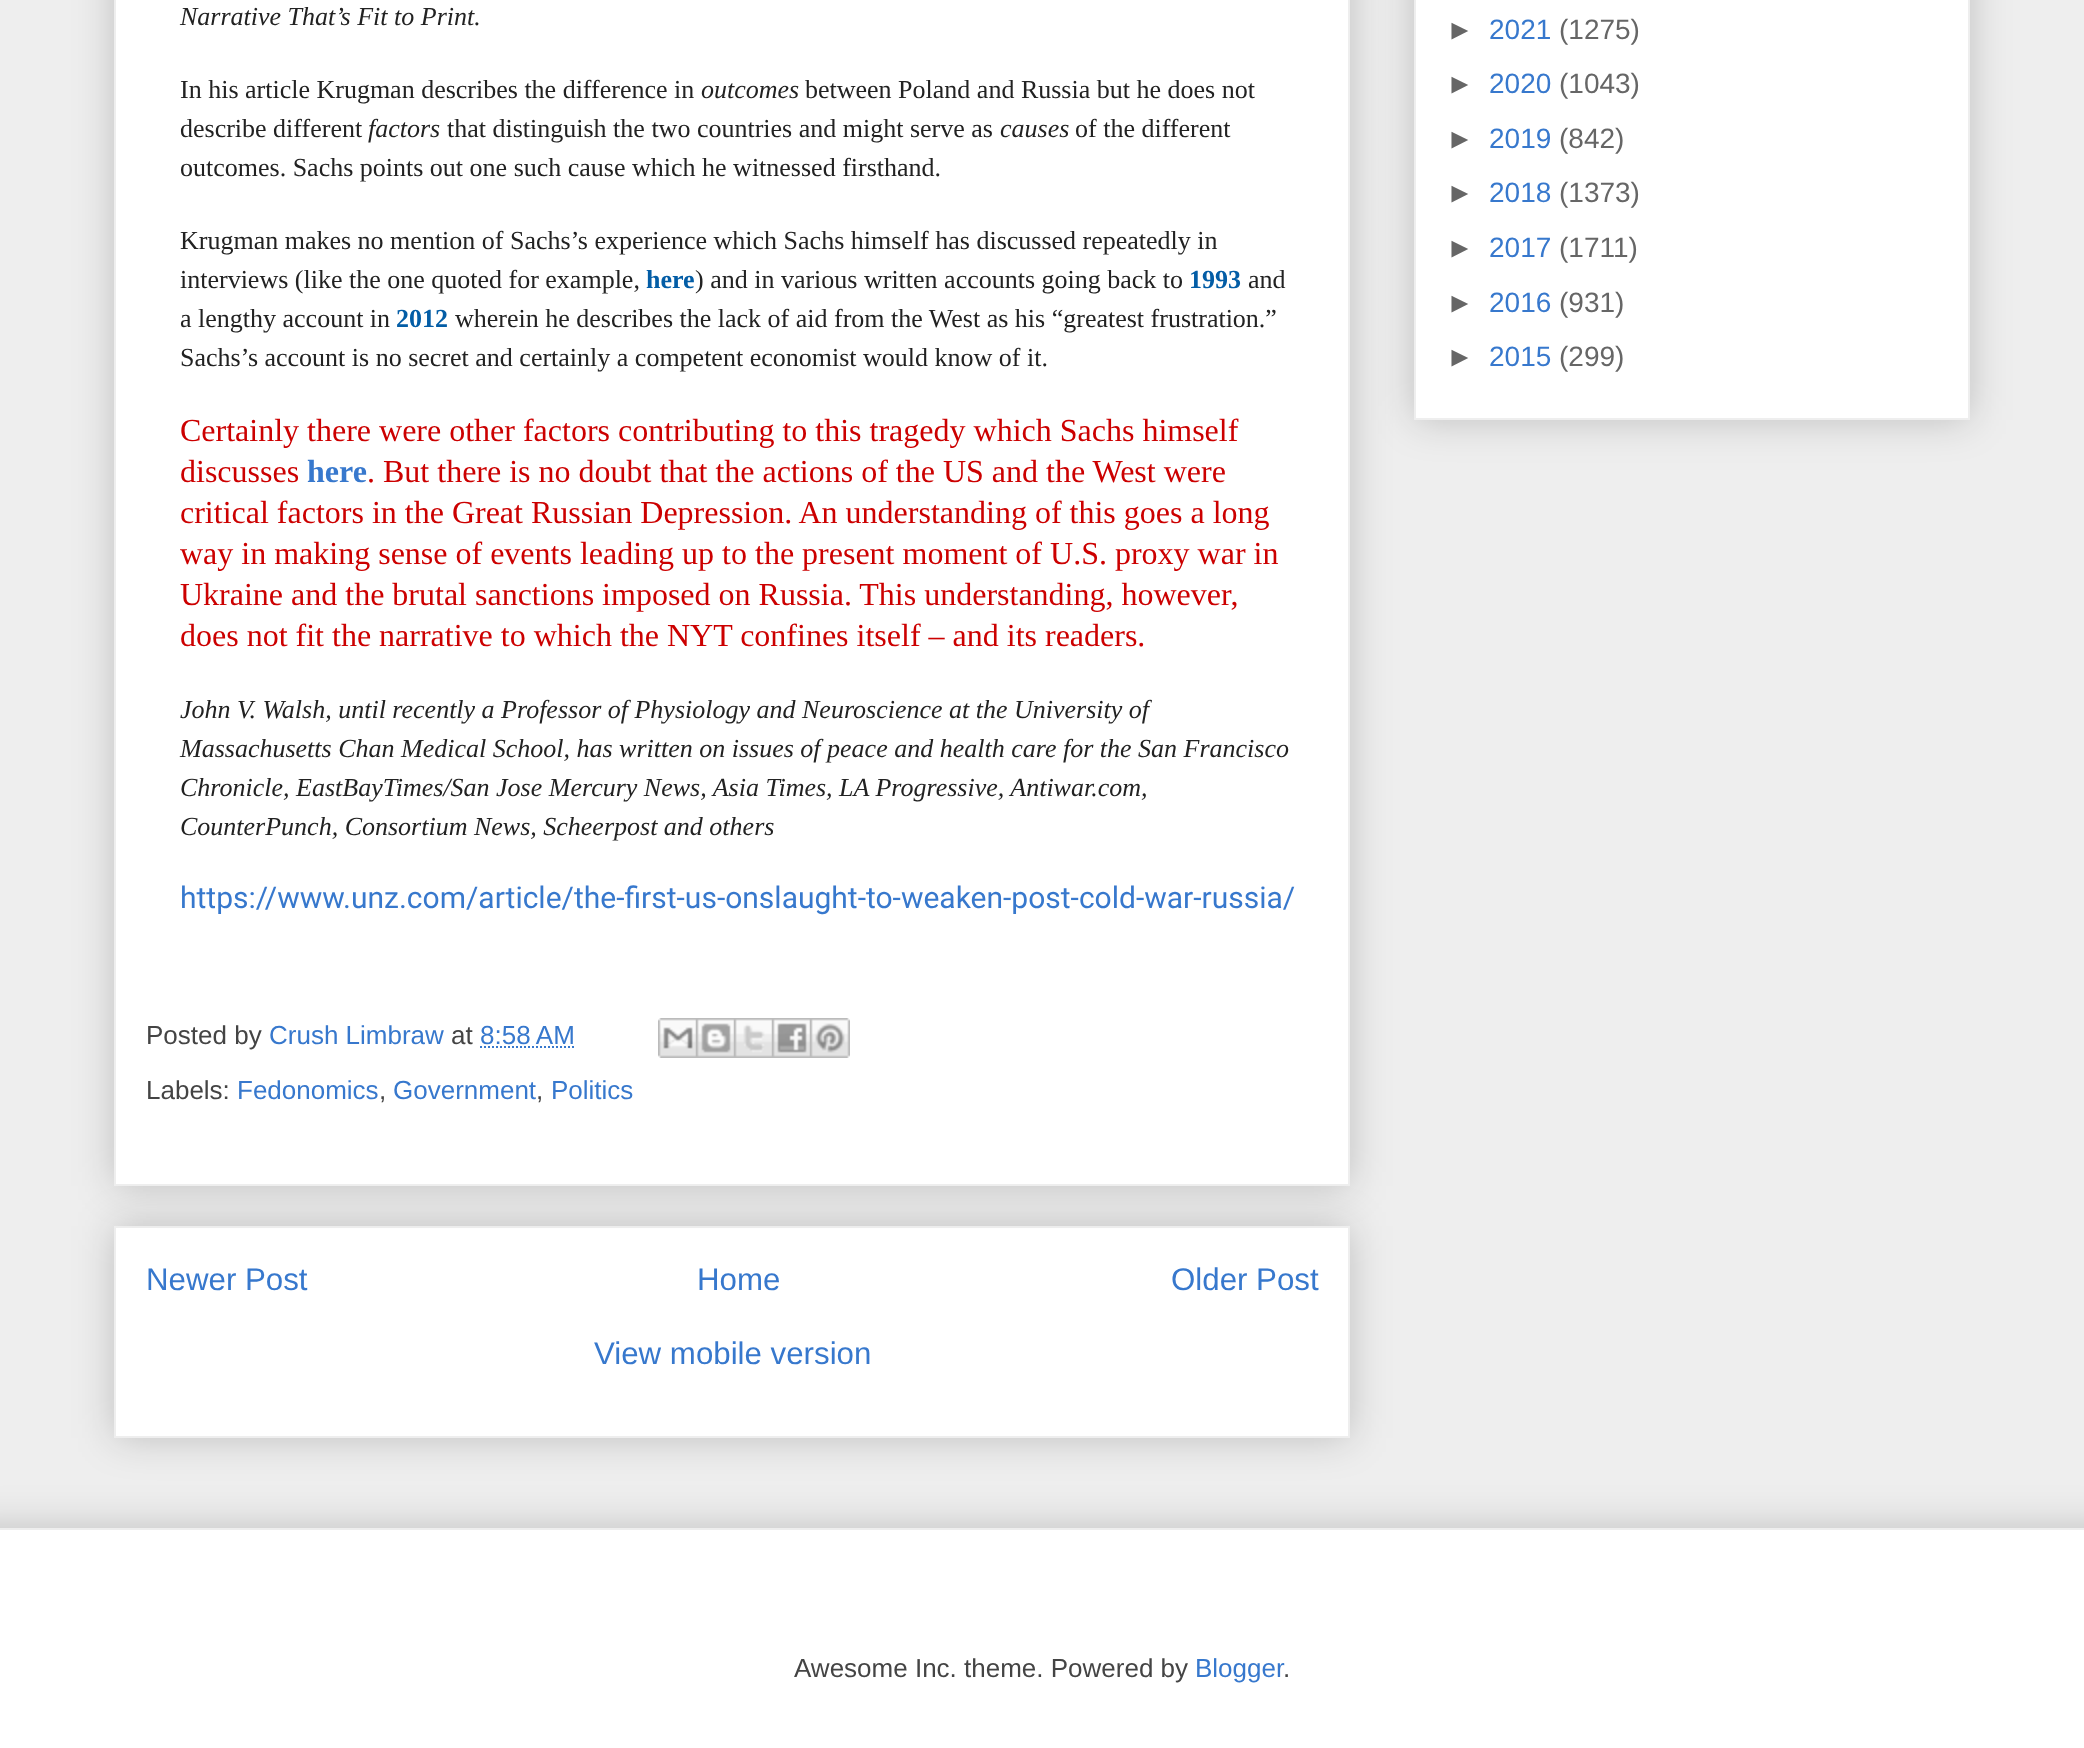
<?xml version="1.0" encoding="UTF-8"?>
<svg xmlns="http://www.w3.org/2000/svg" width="2084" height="1748">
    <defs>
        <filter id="blur1" x="-50%" y="-200%" width="200%" height="500%"><feGaussianBlur stdDeviation="20"/></filter>
    </defs>
    <rect width="100%" height="100%" fill="#EEEEEE"/>
    <rect x="114" y="1226" width="1236" height="212" fill="#000000" fill-opacity="0.2" filter="url(#blur1)"/>
    <rect x="115" y="1227" width="1234" height="210" fill="#FFFFFF" stroke="#EEEEEE" stroke-width="2"/>
    <rect x="114" y="-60" width="1236" height="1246" fill="#000000" fill-opacity="0.2" filter="url(#blur1)"/>
    <rect x="115" y="-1" width="1234" height="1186" fill="#FFFFFF" stroke="#EEEEEE" stroke-width="2"/>
    <text x="180" y="25" font-family="Liberation Serif" font-size="26" font-style="italic" fill="#222222">Narrative That’s Fit to Print.</text>
    <text x="180" y="98" font-family="Liberation Serif" font-size="26" fill="#222222">In his article Krugman describes the difference in</text>
    <text x="701" y="98" font-family="Liberation Serif" font-size="26" font-style="italic" fill="#222222">outcomes</text>
    <text x="805" y="98" font-family="Liberation Serif" font-size="26" fill="#222222">between Poland and Russia but he does not</text>
    <text x="180" y="137" font-family="Liberation Serif" font-size="26" fill="#222222">describe different</text>
    <text x="368" y="137" font-family="Liberation Serif" font-size="26" font-style="italic" fill="#222222">factors</text>
    <text x="447" y="137" font-family="Liberation Serif" font-size="26" fill="#222222">that distinguish the two countries and might serve as</text>
    <text x="1000" y="137" font-family="Liberation Serif" font-size="26" font-style="italic" fill="#222222">causes</text>
    <text x="1075" y="137" font-family="Liberation Serif" font-size="26" fill="#222222">of the different</text>
    <text x="180" y="176" font-family="Liberation Serif" font-size="26" fill="#222222">outcomes. Sachs points out one such cause which he witnessed firsthand.</text>
    <text font-family="Liberation Serif" font-size="26" fill="#222222">
        <tspan x="180" y="249">Krugman makes no mention of Sachs’s experience which Sachs himself has discussed repeatedly in</tspan>
        <tspan x="180" y="288">interviews (like the one quoted for example,</tspan>
    </text>
    <text x="646" y="288" font-family="Liberation Serif" font-size="26" font-weight="700" fill="#035DA6">here</text>
    <text x="695" y="288" font-family="Liberation Serif" font-size="26" fill="#222222">) and in various written accounts going back to</text>
    <text x="1189" y="288" font-family="Liberation Serif" font-size="26" font-weight="700" fill="#035DA6">1993</text>
    <text x="1248" y="288" font-family="Liberation Serif" font-size="26" fill="#222222">and</text>
    <text x="180" y="327" font-family="Liberation Serif" font-size="26" fill="#222222">a lengthy account in</text>
    <text x="396" y="327" font-family="Liberation Serif" font-size="26" font-weight="700" fill="#035DA6">2012</text>
    <text x="455" y="327" font-family="Liberation Serif" font-size="26" fill="#222222">wherein he describes the lack of aid from the West as his “greatest frustration.”</text>
    <text x="180" y="366" font-family="Liberation Serif" font-size="26" fill="#222222">Sachs’s account is no secret and certainly a competent economist would know of it.</text>
    <text font-family="Liberation Serif" font-size="32" fill="#CC0000">
        <tspan x="180" y="441">Certainly there were other factors contributing to this tragedy which Sachs himself</tspan>
        <tspan x="180" y="482">discusses</tspan>
    </text>
    <text x="307" y="482" font-family="Liberation Serif" font-size="32" font-weight="700" fill="#3778CD">here</text>
    <text x="367" y="482" font-family="Liberation Serif" font-size="32" fill="#CC0000">. But there is no doubt that the actions of the US and the West were</text>
    <text font-family="Liberation Serif" font-size="32" fill="#CC0000">
        <tspan x="180" y="523">critical factors in the Great Russian Depression. An understanding of this goes a long</tspan>
        <tspan x="180" y="564">way in making sense of events leading up to the present moment of U.S. proxy war in</tspan>
        <tspan x="180" y="605">Ukraine and the brutal sanctions imposed on Russia. This understanding, however,</tspan>
        <tspan x="180" y="646">does not fit the narrative to which the NYT confines itself – and its readers.</tspan>
    </text>
    <text font-family="Liberation Serif" font-size="26" font-style="italic" fill="#222222">
        <tspan x="180" y="718">John V. Walsh, until recently a Professor of Physiology and Neuroscience at the University of</tspan>
        <tspan x="180" y="757">Massachusetts Chan Medical School, has written on issues of peace and health care for the San Francisco</tspan>
        <tspan x="180" y="796">Chronicle, EastBayTimes/San Jose Mercury News, Asia Times, LA Progressive, Antiwar.com,</tspan>
        <tspan x="180" y="835">CounterPunch, Consortium News, Scheerpost and others</tspan>
    </text>
    <text x="180" y="908" font-family="Roboto" font-size="30" fill="#3778CD">https://www.unz.com/article/the-first-us-onslaught-to-weaken-post-cold-war-russia/</text>
    <text x="146" y="1044" font-family="Liberation Sans" font-size="26" fill="#444444">Posted by</text>
    <text x="269" y="1044" font-family="Liberation Sans" font-size="26" fill="#3778CD">Crush Limbraw</text>
    <text x="451" y="1044" font-family="Liberation Sans" font-size="26" fill="#444444">at</text>
    <text x="480" y="1044" font-family="Liberation Sans" font-size="26" fill="#3778CD">8:58 AM</text>
    <path d="M 480 1047 H 574.5" fill="none" stroke="#3778CD" stroke-width="2" stroke-dasharray="2 2"/>
    <image x="658" y="1018" width="38" height="40" href="img_01.png"/>
    <image x="696" y="1018" width="38" height="40" href="img_02.png"/>
    <image x="734" y="1018" width="38" height="40" href="img_03.png"/>
    <image x="772" y="1018" width="38" height="40" href="img_04.png"/>
    <image x="810" y="1018" width="40" height="40" href="img_05.png"/>
    <text x="146" y="1099" font-family="Liberation Sans" font-size="26" fill="#444444">Labels:</text>
    <text x="237" y="1099" font-family="Liberation Sans" font-size="26" fill="#3778CD">Fedonomics</text>
    <text x="379" y="1099" font-family="Liberation Sans" font-size="26" fill="#444444">,</text>
    <text x="393" y="1099" font-family="Liberation Sans" font-size="26" fill="#3778CD">Government</text>
    <text x="536" y="1099" font-family="Liberation Sans" font-size="26" fill="#444444">,</text>
    <text x="551" y="1099" font-family="Liberation Sans" font-size="26" fill="#3778CD">Politics</text>
    <text x="146" y="1290" font-family="Liberation Sans" font-size="31.25" fill="#3778CD">Newer Post</text>
    <text x="697" y="1290" font-family="Liberation Sans" font-size="31.25" fill="#3778CD">Home</text>
    <text x="1171" y="1290" font-family="Liberation Sans" font-size="31.25" fill="#3778CD">Older Post</text>
    <text x="594" y="1364" font-family="Liberation Sans" font-size="31.25" fill="#3778CD">View mobile version</text>
    <rect x="1414" y="-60" width="556" height="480" fill="#000000" fill-opacity="0.2" filter="url(#blur1)"/>
    <rect x="1415" y="-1" width="554" height="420" fill="#FFFFFF" stroke="#EEEEEE" stroke-width="2"/>
    <text x="1446" y="39" font-family="Liberation Sans" font-size="28" fill="#666666">►</text>
    <text x="1489" y="39" font-family="Liberation Sans" font-size="28" fill="#3778CD">2021</text>
    <text x="1559" y="39" font-family="Liberation Sans" font-size="28" fill="#666666">(1275)</text>
    <text x="1446" y="93" font-family="Liberation Sans" font-size="28" fill="#666666">►</text>
    <text x="1489" y="93" font-family="Liberation Sans" font-size="28" fill="#3778CD">2020</text>
    <text x="1559" y="93" font-family="Liberation Sans" font-size="28" fill="#666666">(1043)</text>
    <text x="1446" y="148" font-family="Liberation Sans" font-size="28" fill="#666666">►</text>
    <text x="1489" y="148" font-family="Liberation Sans" font-size="28" fill="#3778CD">2019</text>
    <text x="1559" y="148" font-family="Liberation Sans" font-size="28" fill="#666666">(842)</text>
    <text x="1446" y="202" font-family="Liberation Sans" font-size="28" fill="#666666">►</text>
    <text x="1489" y="202" font-family="Liberation Sans" font-size="28" fill="#3778CD">2018</text>
    <text x="1559" y="202" font-family="Liberation Sans" font-size="28" fill="#666666">(1373)</text>
    <text x="1446" y="257" font-family="Liberation Sans" font-size="28" fill="#666666">►</text>
    <text x="1489" y="257" font-family="Liberation Sans" font-size="28" fill="#3778CD">2017</text>
    <text x="1559" y="257" font-family="Liberation Sans" font-size="28" fill="#666666">(1711)</text>
    <text x="1446" y="312" font-family="Liberation Sans" font-size="28" fill="#666666">►</text>
    <text x="1489" y="312" font-family="Liberation Sans" font-size="28" fill="#3778CD">2016</text>
    <text x="1559" y="312" font-family="Liberation Sans" font-size="28" fill="#666666">(931)</text>
    <text x="1446" y="366" font-family="Liberation Sans" font-size="28" fill="#666666">►</text>
    <text x="1489" y="366" font-family="Liberation Sans" font-size="28" fill="#3778CD">2015</text>
    <text x="1559" y="366" font-family="Liberation Sans" font-size="28" fill="#666666">(299)</text>
    <rect x="-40" y="1528" width="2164" height="220" fill="#000000" fill-opacity="0.2" filter="url(#blur1)"/>
    <rect x="0" y="1530" width="2084" height="218" fill="#FFFFFF"/>
    <rect x="0" y="1528" width="2084" height="2" fill="#EEEEEE"/>
    <text x="794" y="1677" font-family="Liberation Sans" font-size="26" fill="#444444">Awesome Inc. theme. Powered by</text>
    <text x="1195" y="1677" font-family="Liberation Sans" font-size="26" fill="#3778CD">Blogger</text>
    <text x="1283" y="1677" font-family="Liberation Sans" font-size="26" fill="#444444">.</text>
</svg>
